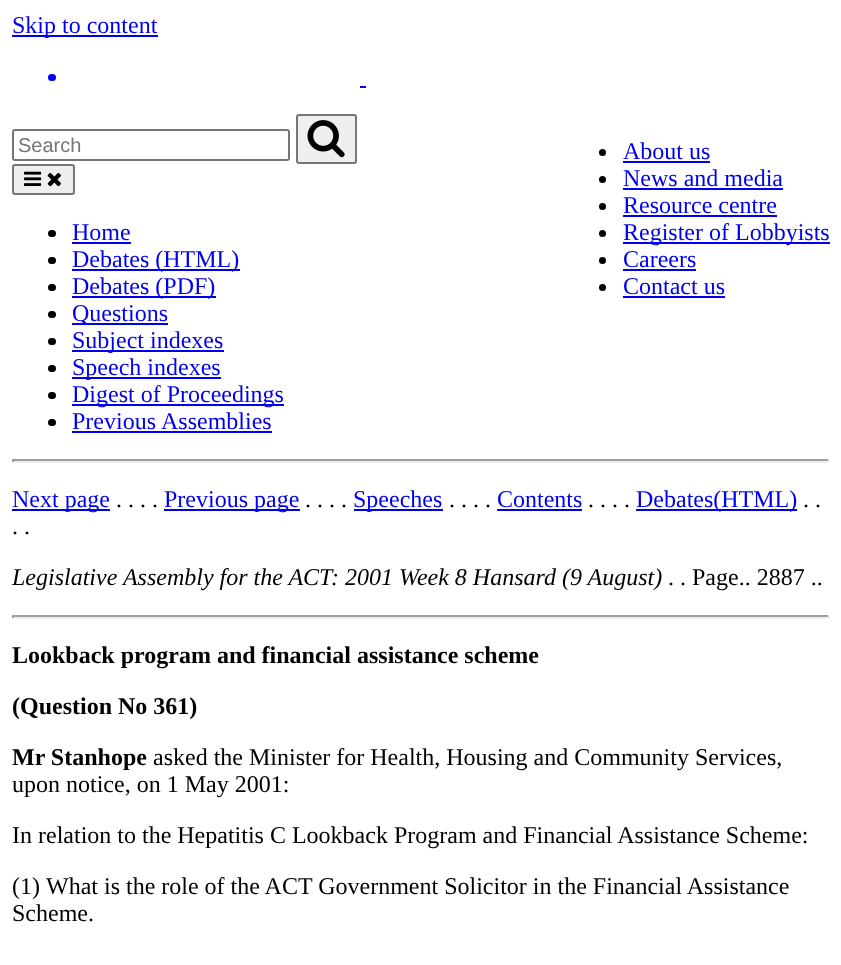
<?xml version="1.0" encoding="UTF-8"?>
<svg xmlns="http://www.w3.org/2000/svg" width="841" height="965">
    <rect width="100%" height="100%" fill="#FFFFFF"/>
    <rect x="12" y="35" width="146" height="2" fill="#0000EE"/>
    <text x="12" y="33" font-family="Liberation Serif" font-size="24" fill="#0000EE">Skip to content</text>
    <rect x="48" y="74" width="8" height="7" rx="3.5" fill="#0000EE"/>
    <rect x="360" y="86" width="6" height="2" fill="#0000EE"/>
    <rect x="13" y="130" width="276" height="30" rx="2" fill="none" stroke="#767676" stroke-width="2"/>
    <text x="18" y="152" font-family="Liberation Sans" font-size="20" fill="#757575">Search</text>
    <rect x="297" y="115" width="59" height="48" rx="2" fill="#EFEFEF" stroke="#767676" stroke-width="2"/>
    <image x="307" y="120" width="38" height="38" href="img_01.png"/>
    <circle cx="602.5" cy="152.5" r="3.5" fill="#000000"/>
    <text x="623" y="159" font-family="Liberation Serif" font-size="24" fill="#0000EE">About us</text>
    <rect x="623" y="161" width="87" height="2" fill="#0000EE"/>
    <circle cx="602.5" cy="179.5" r="3.5" fill="#000000"/>
    <text x="623" y="186" font-family="Liberation Serif" font-size="24" fill="#0000EE">News and media</text>
    <rect x="623" y="188" width="160" height="2" fill="#0000EE"/>
    <circle cx="602.5" cy="206.5" r="3.5" fill="#000000"/>
    <text x="623" y="213" font-family="Liberation Serif" font-size="24" fill="#0000EE">Resource centre</text>
    <rect x="623" y="215" width="154" height="2" fill="#0000EE"/>
    <circle cx="602.5" cy="233.5" r="3.5" fill="#000000"/>
    <rect x="623" y="242" width="207" height="2" fill="#0000EE"/>
    <text x="623" y="240" font-family="Liberation Serif" font-size="24" fill="#0000EE">Register of Lobbyists</text>
    <circle cx="602.5" cy="260.5" r="3.5" fill="#000000"/>
    <text x="623" y="267" font-family="Liberation Serif" font-size="24" fill="#0000EE">Careers</text>
    <rect x="623" y="269" width="73" height="2" fill="#0000EE"/>
    <circle cx="602.5" cy="287.5" r="3.5" fill="#000000"/>
    <text x="623" y="294" font-family="Liberation Serif" font-size="24" fill="#0000EE">Contact us</text>
    <rect x="623" y="296" width="102" height="2" fill="#0000EE"/>
    <rect x="13" y="165" width="61" height="29" rx="2" fill="#EFEFEF" stroke="#767676" stroke-width="2"/>
    <image x="24" y="171" width="18" height="15" href="img_02.png"/>
    <image x="47" y="173" width="14" height="14" href="img_03.png"/>
    <rect x="48" y="230" width="8" height="7" rx="3.5" fill="#000000"/>
    <text x="72" y="240" font-family="Liberation Serif" font-size="24" fill="#0000EE">Home</text>
    <rect x="72" y="242" width="59" height="2" fill="#0000EE"/>
    <rect x="48" y="257" width="8" height="7" rx="3.5" fill="#000000"/>
    <rect x="72" y="269" width="168" height="2" fill="#0000EE"/>
    <text x="72" y="267" font-family="Liberation Serif" font-size="24" fill="#0000EE">Debates (HTML)</text>
    <rect x="48" y="284" width="8" height="7" rx="3.5" fill="#000000"/>
    <rect x="72" y="296" width="144" height="2" fill="#0000EE"/>
    <text x="72" y="294" font-family="Liberation Serif" font-size="24" fill="#0000EE">Debates (PDF)</text>
    <rect x="48" y="311" width="8" height="7" rx="3.5" fill="#000000"/>
    <rect x="72" y="323" width="96" height="2" fill="#0000EE"/>
    <text x="72" y="321" font-family="Liberation Serif" font-size="24" fill="#0000EE">Questions</text>
    <rect x="48" y="338" width="8" height="7" rx="3.5" fill="#000000"/>
    <rect x="72" y="350" width="152" height="2" fill="#0000EE"/>
    <text x="72" y="348" font-family="Liberation Serif" font-size="24" fill="#0000EE">Subject indexes</text>
    <rect x="48" y="365" width="8" height="7" rx="3.5" fill="#000000"/>
    <rect x="72" y="377" width="149" height="2" fill="#0000EE"/>
    <text x="72" y="375" font-family="Liberation Serif" font-size="24" fill="#0000EE">Speech indexes</text>
    <rect x="48" y="392" width="8" height="7" rx="3.5" fill="#000000"/>
    <rect x="72" y="404" width="212" height="2" fill="#0000EE"/>
    <text x="72" y="402" font-family="Liberation Serif" font-size="24" fill="#0000EE">Digest of Proceedings</text>
    <rect x="48" y="419" width="8" height="7" rx="3.5" fill="#000000"/>
    <text x="72" y="429" font-family="Liberation Serif" font-size="24" fill="#0000EE">Previous</text>
    <rect x="72" y="431" width="200" height="2" fill="#0000EE"/>
    <text x="161" y="429" font-family="Liberation Serif" font-size="24" fill="#0000EE">Assemblies</text>
    <rect x="12" y="459" width="818" height="2" fill="#9F9F9F"/>
    <rect x="828" y="459" width="2" height="3" fill="#EEEEEE"/>
    <rect x="12" y="461" width="818" height="2" fill="#EEEEEE"/>
    <rect x="12" y="459" width="2" height="3" fill="#9F9F9F"/>
    <rect x="12" y="509" width="98" height="2" fill="#0000EE"/>
    <text x="12" y="507" font-family="Liberation Serif" font-size="24" fill="#0000EE">Next page</text>
    <text x="116" y="507" font-family="Liberation Serif" font-size="24" fill="#000000">. . . .</text>
    <rect x="164" y="509" width="136" height="2" fill="#0000EE"/>
    <text x="164" y="507" font-family="Liberation Serif" font-size="24" fill="#0000EE">Previous page</text>
    <text x="305" y="507" font-family="Liberation Serif" font-size="24" fill="#000000">. . . .</text>
    <rect x="354" y="509" width="89" height="2" fill="#0000EE"/>
    <text x="353" y="507" font-family="Liberation Serif" font-size="24" fill="#0000EE">Speeches</text>
    <text x="449" y="507" font-family="Liberation Serif" font-size="24" fill="#000000">. . . .</text>
    <text x="497" y="507" font-family="Liberation Serif" font-size="24" fill="#0000EE">Contents</text>
    <rect x="497" y="509" width="85" height="2" fill="#0000EE"/>
    <text x="588" y="507" font-family="Liberation Serif" font-size="24" fill="#000000">. . . .</text>
    <rect x="636" y="509" width="161" height="2" fill="#0000EE"/>
    <text x="636" y="507" font-family="Liberation Serif" font-size="24" fill="#0000EE">Debates(HTML)</text>
    <text x="803" y="507" font-family="Liberation Serif" font-size="24" fill="#000000">. .</text>
    <text x="12" y="534" font-family="Liberation Serif" font-size="24" fill="#000000">. .</text>
    <text x="12" y="585" font-family="Liberation Serif" font-size="24" font-style="italic" fill="#000000">Legislative Assembly for the ACT: 2001 Week 8 Hansard (9 August)</text>
    <text x="668" y="585" font-family="Liberation Serif" font-size="24" fill="#000000">. . Page.. 2887 ..</text>
    <rect x="12" y="615" width="818" height="2" fill="#9F9F9F"/>
    <rect x="828" y="615" width="2" height="3" fill="#EEEEEE"/>
    <rect x="12" y="617" width="818" height="2" fill="#EEEEEE"/>
    <rect x="12" y="615" width="2" height="3" fill="#9F9F9F"/>
    <text x="12" y="663" font-family="Liberation Serif" font-size="24" font-weight="700" fill="#000000">Lookback program and financial assistance scheme</text>
    <text x="12" y="714" font-family="Liberation Serif" font-size="24" font-weight="700" fill="#000000">(Question No 361)</text>
    <text x="12" y="765" font-family="Liberation Serif" font-size="24" font-weight="700" fill="#000000">Mr Stanhope</text>
    <text x="153" y="765" font-family="Liberation Serif" font-size="24" fill="#000000">asked the Minister for Health, Housing and Community Services,</text>
    <text x="12" y="792" font-family="Liberation Serif" font-size="24" fill="#000000">upon notice, on 1 May 2001:</text>
    <text x="12" y="843" font-family="Liberation Serif" font-size="24" fill="#000000">In relation to the Hepatitis C Lookback Program and Financial Assistance Scheme:</text>
    <text x="12" y="894" font-family="Liberation Serif" font-size="24" fill="#000000">(1)</text>
    <text x="46" y="894" font-family="Liberation Serif" font-size="24" fill="#000000">What is the role of the ACT Government Solicitor in the Financial Assistance</text>
    <text x="12" y="921" font-family="Liberation Serif" font-size="24" fill="#000000">Scheme.</text>
</svg>
